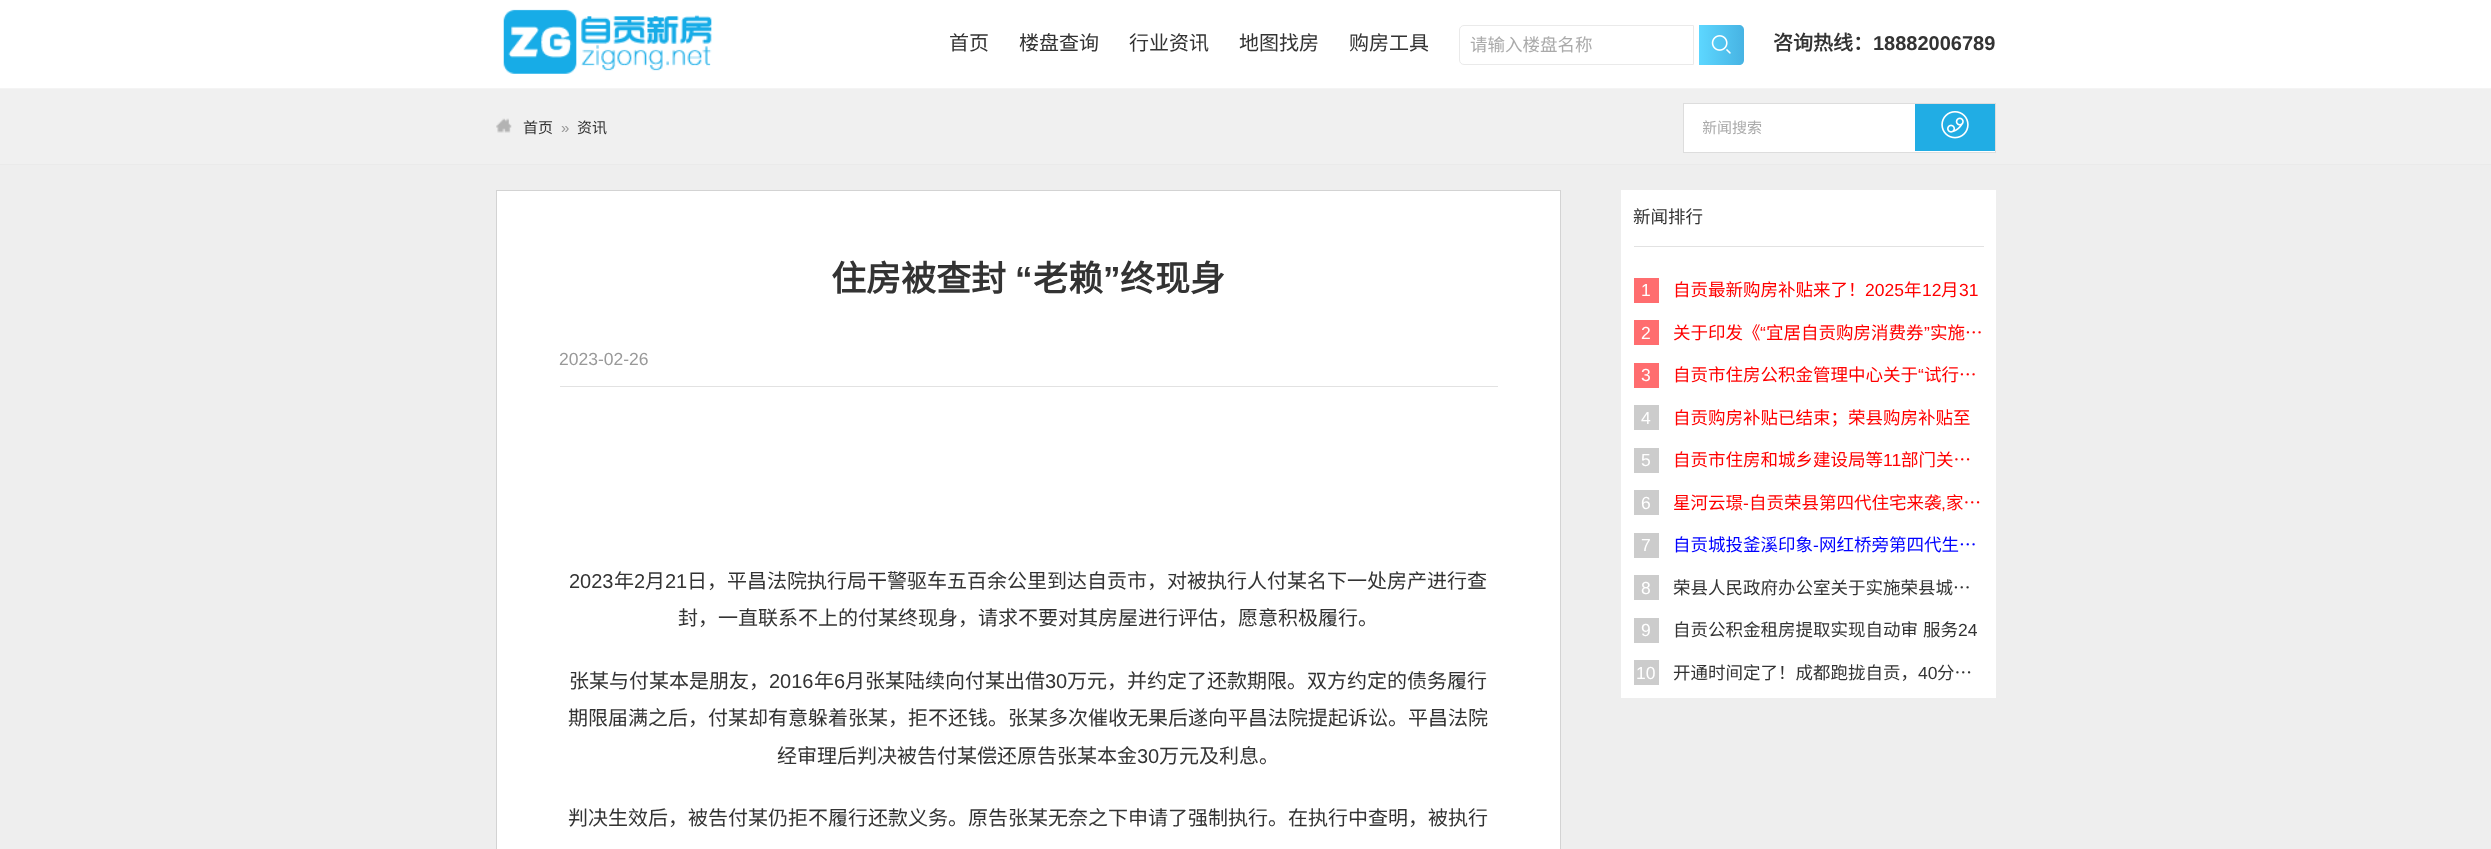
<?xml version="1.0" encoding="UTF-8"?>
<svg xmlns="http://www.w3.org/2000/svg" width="2491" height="849">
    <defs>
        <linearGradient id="g1" gradientUnits="userSpaceOnUse" x1="1699" y1="45" x2="1744" y2="45"><stop offset="0" stop-color="#5DD7FF"/><stop offset="1" stop-color="#47B3E3"/></linearGradient>
        <clipPath id="clip1"><rect x="1703" y="116" width="193" height="22"/></clipPath>
    </defs>
    <rect width="100%" height="100%" fill="#FFFFFF"/>
    <rect x="0" y="88" width="2491" height="1" fill="#F4F4F4"/>
    <image x="503" y="9" width="209" height="65" href="img_01.png"/>
    <text x="949" y="50" font-family="Noto Sans CJK SC" font-size="20" fill="#333333">首页</text>
    <text x="1019" y="50" font-family="Noto Sans CJK SC" font-size="20" fill="#333333">楼盘查询</text>
    <text x="1129" y="50" font-family="Noto Sans CJK SC" font-size="20" fill="#333333">行业资讯</text>
    <text x="1239" y="50" font-family="Noto Sans CJK SC" font-size="20" fill="#333333">地图找房</text>
    <text x="1349" y="50" font-family="Noto Sans CJK SC" font-size="20" fill="#333333">购房工具</text>
    <path d="M 1464 25.5 H 1693.5 V 64.5 H 1464 C 1461.5 64.5 1459.5 62.5 1459.5 60 V 30 C 1459.5 27.5 1461.5 25.5 1464 25.5 Z" fill="none" stroke="#EAEAEA"/>
    <text x="1470" y="51" font-family="Noto Sans CJK SC" font-size="17.5" fill="#AAAAAA">请输入楼盘名称</text>
    <path d="M 1699 25 H 1739 C 1742 25 1744 27 1744 30 V 60 C 1744 63 1742 65 1739 65 H 1699 Z" fill="url(#g1)"/>
    <image x="1711" y="35" width="20" height="19" href="img_02.png"/>
    <text x="1773" y="50" font-family="Noto Sans CJK SC" font-size="20" font-weight="700" fill="#333333">咨询热线：</text>
    <text x="1873" y="50" font-family="Liberation Sans" font-size="20" font-weight="700" fill="#333333">18882006789</text>
    <rect x="0" y="89" width="2491" height="75" fill="#F0F0F0"/>
    <rect x="0" y="164" width="2491" height="1" fill="#EAEAEA"/>
    <image x="496" y="118" width="16" height="15" href="img_03.png"/>
    <text x="523" y="133" font-family="Noto Sans CJK SC" font-size="15" fill="#333333">首页</text>
    <text x="561" y="133" font-family="Liberation Sans" font-size="15" fill="#999999">»</text>
    <text x="577" y="133" font-family="Noto Sans CJK SC" font-size="15" fill="#333333">资讯</text>
    <rect x="1683.5" y="103.5" width="312" height="49" fill="#FFFFFF" stroke="#DDDDDD"/>
    <g clip-path="url(#clip1)">
        <text x="1702" y="133" font-family="Noto Sans CJK SC" font-size="15" fill="#AAAAAA">新闻搜索</text>
    </g>
    <rect x="1915" y="104" width="80" height="47" fill="#21ADE4"/>
    <image x="1941" y="111" width="28" height="28" href="img_04.png"/>
    <rect x="0" y="165" width="2491" height="684" fill="#EEEEEE"/>
    <rect x="496.5" y="190.5" width="1064" height="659" fill="#FFFFFF" stroke="#D3D3D3"/>
    <text x="831" y="291" font-family="Noto Sans CJK SC" font-size="35" font-weight="700" fill="#333333">住房被查封</text>
    <text x="1015" y="291" font-family="Liberation Sans" font-size="35" font-weight="700" fill="#333333">“</text>
    <text x="1033" y="291" font-family="Noto Sans CJK SC" font-size="35" font-weight="700" fill="#333333">老赖</text>
    <text x="1103" y="291" font-family="Liberation Sans" font-size="35" font-weight="700" fill="#333333">”</text>
    <text x="1120" y="291" font-family="Noto Sans CJK SC" font-size="35" font-weight="700" fill="#333333">终现身</text>
    <rect x="560" y="386" width="938" height="1" fill="#E2E2E2"/>
    <text x="559" y="365" font-family="Liberation Sans" font-size="17.5" fill="#999999">2023-02-26</text>
    <text x="569" y="588" font-family="Liberation Sans" font-size="20" fill="#333333">2023</text>
    <text x="614" y="588" font-family="Noto Sans CJK SC" font-size="20" fill="#333333">年</text>
    <text x="634" y="588" font-family="Liberation Sans" font-size="20" fill="#333333">2</text>
    <text x="645" y="588" font-family="Noto Sans CJK SC" font-size="20" fill="#333333">月</text>
    <text x="665" y="588" font-family="Liberation Sans" font-size="20" fill="#333333">21</text>
    <text x="687" y="588" font-family="Noto Sans CJK SC" font-size="20" fill="#333333">日，平昌法院执行局干警驱车五百余公里到达自贡市，对被执行人付某名下一处房产进行查</text>
    <text x="678" y="625" font-family="Noto Sans CJK SC" font-size="20" fill="#333333">封，一直联系不上的付某终现身，请求不要对其房屋进行评估，愿意积极履行。</text>
    <text x="569" y="688" font-family="Noto Sans CJK SC" font-size="20" fill="#333333">张某与付某本是朋友，</text>
    <text x="769" y="688" font-family="Liberation Sans" font-size="20" fill="#333333">2016</text>
    <text x="814" y="688" font-family="Noto Sans CJK SC" font-size="20" fill="#333333">年</text>
    <text x="834" y="688" font-family="Liberation Sans" font-size="20" fill="#333333">6</text>
    <text x="845" y="688" font-family="Noto Sans CJK SC" font-size="20" fill="#333333">月张某陆续向付某出借</text>
    <text x="1045" y="688" font-family="Liberation Sans" font-size="20" fill="#333333">30</text>
    <text x="1067" y="688" font-family="Noto Sans CJK SC" font-size="20" fill="#333333">万元，并约定了还款期限。双方约定的债务履行</text>
    <text x="568" y="725" font-family="Noto Sans CJK SC" font-size="20" fill="#333333">期限届满之后，付某却有意躲着张某，拒不还钱。张某多次催收无果后遂向平昌法院提起诉讼。平昌法院</text>
    <text x="777" y="763" font-family="Noto Sans CJK SC" font-size="20" fill="#333333">经审理后判决被告付某偿还原告张某本金</text>
    <text x="1137" y="763" font-family="Liberation Sans" font-size="20" fill="#333333">30</text>
    <text x="1159" y="763" font-family="Noto Sans CJK SC" font-size="20" fill="#333333">万元及利息。</text>
    <text x="568" y="825" font-family="Noto Sans CJK SC" font-size="20" fill="#333333">判决生效后，被告付某仍拒不履行还款义务。原告张某无奈之下申请了强制执行。在执行中查明，被执行</text>
    <rect x="1621" y="190" width="375" height="508" fill="#FFFFFF"/>
    <rect x="1634" y="246" width="350" height="1" fill="#E2E2E2"/>
    <text x="1633" y="223" font-family="Noto Sans CJK SC" font-size="17.5" fill="#333333">新闻排行</text>
    <rect x="1634" y="278" width="25" height="25" fill="#FF6D6F"/>
    <text x="1641" y="296" font-family="Liberation Sans" font-size="17.5" fill="#FFFFFF">1</text>
    <text x="1673" y="296" font-family="Noto Sans CJK SC" font-size="17.5" fill="#FF0000">自贡最新购房补贴来了！</text>
    <text x="1865" y="296" font-family="Liberation Sans" font-size="17.5" fill="#FF0000">2025</text>
    <text x="1904" y="296" font-family="Noto Sans CJK SC" font-size="17.5" fill="#FF0000">年</text>
    <text x="1922" y="296" font-family="Liberation Sans" font-size="17.5" fill="#FF0000">12</text>
    <text x="1941" y="296" font-family="Noto Sans CJK SC" font-size="17.5" fill="#FF0000">月</text>
    <text x="1959" y="296" font-family="Liberation Sans" font-size="17.5" fill="#FF0000">31</text>
    <rect x="1634" y="320" width="25" height="25" fill="#FF6D6F"/>
    <text x="1641" y="339" font-family="Liberation Sans" font-size="17.5" fill="#FFFFFF">2</text>
    <text x="1673" y="339" font-family="Noto Sans CJK SC" font-size="17.5" fill="#FF0000">关于印发《</text>
    <text x="1760" y="339" font-family="Liberation Sans" font-size="17.5" fill="#FF0000">“</text>
    <text x="1766" y="339" font-family="Noto Sans CJK SC" font-size="17.5" fill="#FF0000">宜居自贡购房消费券</text>
    <text x="1924" y="339" font-family="Liberation Sans" font-size="17.5" fill="#FF0000">”</text>
    <text x="1930" y="339" font-family="Noto Sans CJK SC" font-size="17.5" fill="#FF0000">实施…</text>
    <rect x="1634" y="363" width="25" height="25" fill="#FF6D6F"/>
    <text x="1641" y="381" font-family="Liberation Sans" font-size="17.5" fill="#FFFFFF">3</text>
    <text x="1673" y="381" font-family="Noto Sans CJK SC" font-size="17.5" fill="#FF0000">自贡市住房公积金管理中心关于</text>
    <text x="1918" y="381" font-family="Liberation Sans" font-size="17.5" fill="#FF0000">“</text>
    <text x="1924" y="381" font-family="Noto Sans CJK SC" font-size="17.5" fill="#FF0000">试行…</text>
    <rect x="1634" y="405" width="25" height="25" fill="#CCCCCC"/>
    <text x="1641" y="424" font-family="Liberation Sans" font-size="17.5" fill="#FFFFFF">4</text>
    <text x="1673" y="424" font-family="Noto Sans CJK SC" font-size="17.5" fill="#FF0000">自贡购房补贴已结束；荣县购房补贴至</text>
    <rect x="1634" y="448" width="25" height="25" fill="#CCCCCC"/>
    <text x="1641" y="466" font-family="Liberation Sans" font-size="17.5" fill="#FFFFFF">5</text>
    <text x="1673" y="466" font-family="Noto Sans CJK SC" font-size="17.5" fill="#FF0000">自贡市住房和城乡建设局等</text>
    <text x="1883" y="466" font-family="Liberation Sans" font-size="17.5" fill="#FF0000">11</text>
    <text x="1901" y="466" font-family="Noto Sans CJK SC" font-size="17.5" fill="#FF0000">部门关…</text>
    <rect x="1634" y="490" width="25" height="25" fill="#CCCCCC"/>
    <text x="1641" y="509" font-family="Liberation Sans" font-size="17.5" fill="#FFFFFF">6</text>
    <text x="1673" y="509" font-family="Noto Sans CJK SC" font-size="17.5" fill="#FF0000">星河云璟</text>
    <text x="1743" y="509" font-family="Liberation Sans" font-size="17.5" fill="#FF0000">-</text>
    <text x="1749" y="509" font-family="Noto Sans CJK SC" font-size="17.5" fill="#FF0000">自贡荣县第四代住宅来袭</text>
    <text x="1946" y="509" font-family="Noto Sans CJK SC" font-size="17.5" fill="#FF0000">家…</text>
    <text x="1941" y="509" font-family="Liberation Sans" font-size="17.5" fill="#FF0000">,</text>
    <rect x="1634" y="533" width="25" height="25" fill="#CCCCCC"/>
    <text x="1641" y="551" font-family="Liberation Sans" font-size="17.5" fill="#FFFFFF">7</text>
    <text x="1673" y="551" font-family="Noto Sans CJK SC" font-size="17.5" fill="#0000FF">自贡城投釜溪印象</text>
    <text x="1813" y="551" font-family="Liberation Sans" font-size="17.5" fill="#0000FF">-</text>
    <text x="1819" y="551" font-family="Noto Sans CJK SC" font-size="17.5" fill="#0000FF">网红桥旁第四代生…</text>
    <rect x="1634" y="575" width="25" height="25" fill="#CCCCCC"/>
    <text x="1641" y="594" font-family="Liberation Sans" font-size="17.5" fill="#FFFFFF">8</text>
    <text x="1673" y="594" font-family="Noto Sans CJK SC" font-size="17.5" fill="#333333">荣县人民政府办公室关于实施荣县城…</text>
    <rect x="1634" y="618" width="25" height="25" fill="#CCCCCC"/>
    <text x="1641" y="636" font-family="Liberation Sans" font-size="17.5" fill="#FFFFFF">9</text>
    <text x="1673" y="636" word-spacing="1" font-family="Noto Sans CJK SC" font-size="17.5" fill="#333333">自贡公积金租房提取实现自动审 服务</text>
    <text x="1958" y="636" font-family="Liberation Sans" font-size="17.5" fill="#333333">24</text>
    <rect x="1634" y="660" width="25" height="25" fill="#CCCCCC"/>
    <text x="1636" y="679" font-family="Liberation Sans" font-size="17.5" fill="#FFFFFF">10</text>
    <text x="1673" y="679" font-family="Noto Sans CJK SC" font-size="17.5" fill="#333333">开通时间定了！成都跑拢自贡，</text>
    <text x="1918" y="679" font-family="Liberation Sans" font-size="17.5" fill="#333333">40</text>
    <text x="1937" y="679" font-family="Noto Sans CJK SC" font-size="17.5" fill="#333333">分…</text>
</svg>
